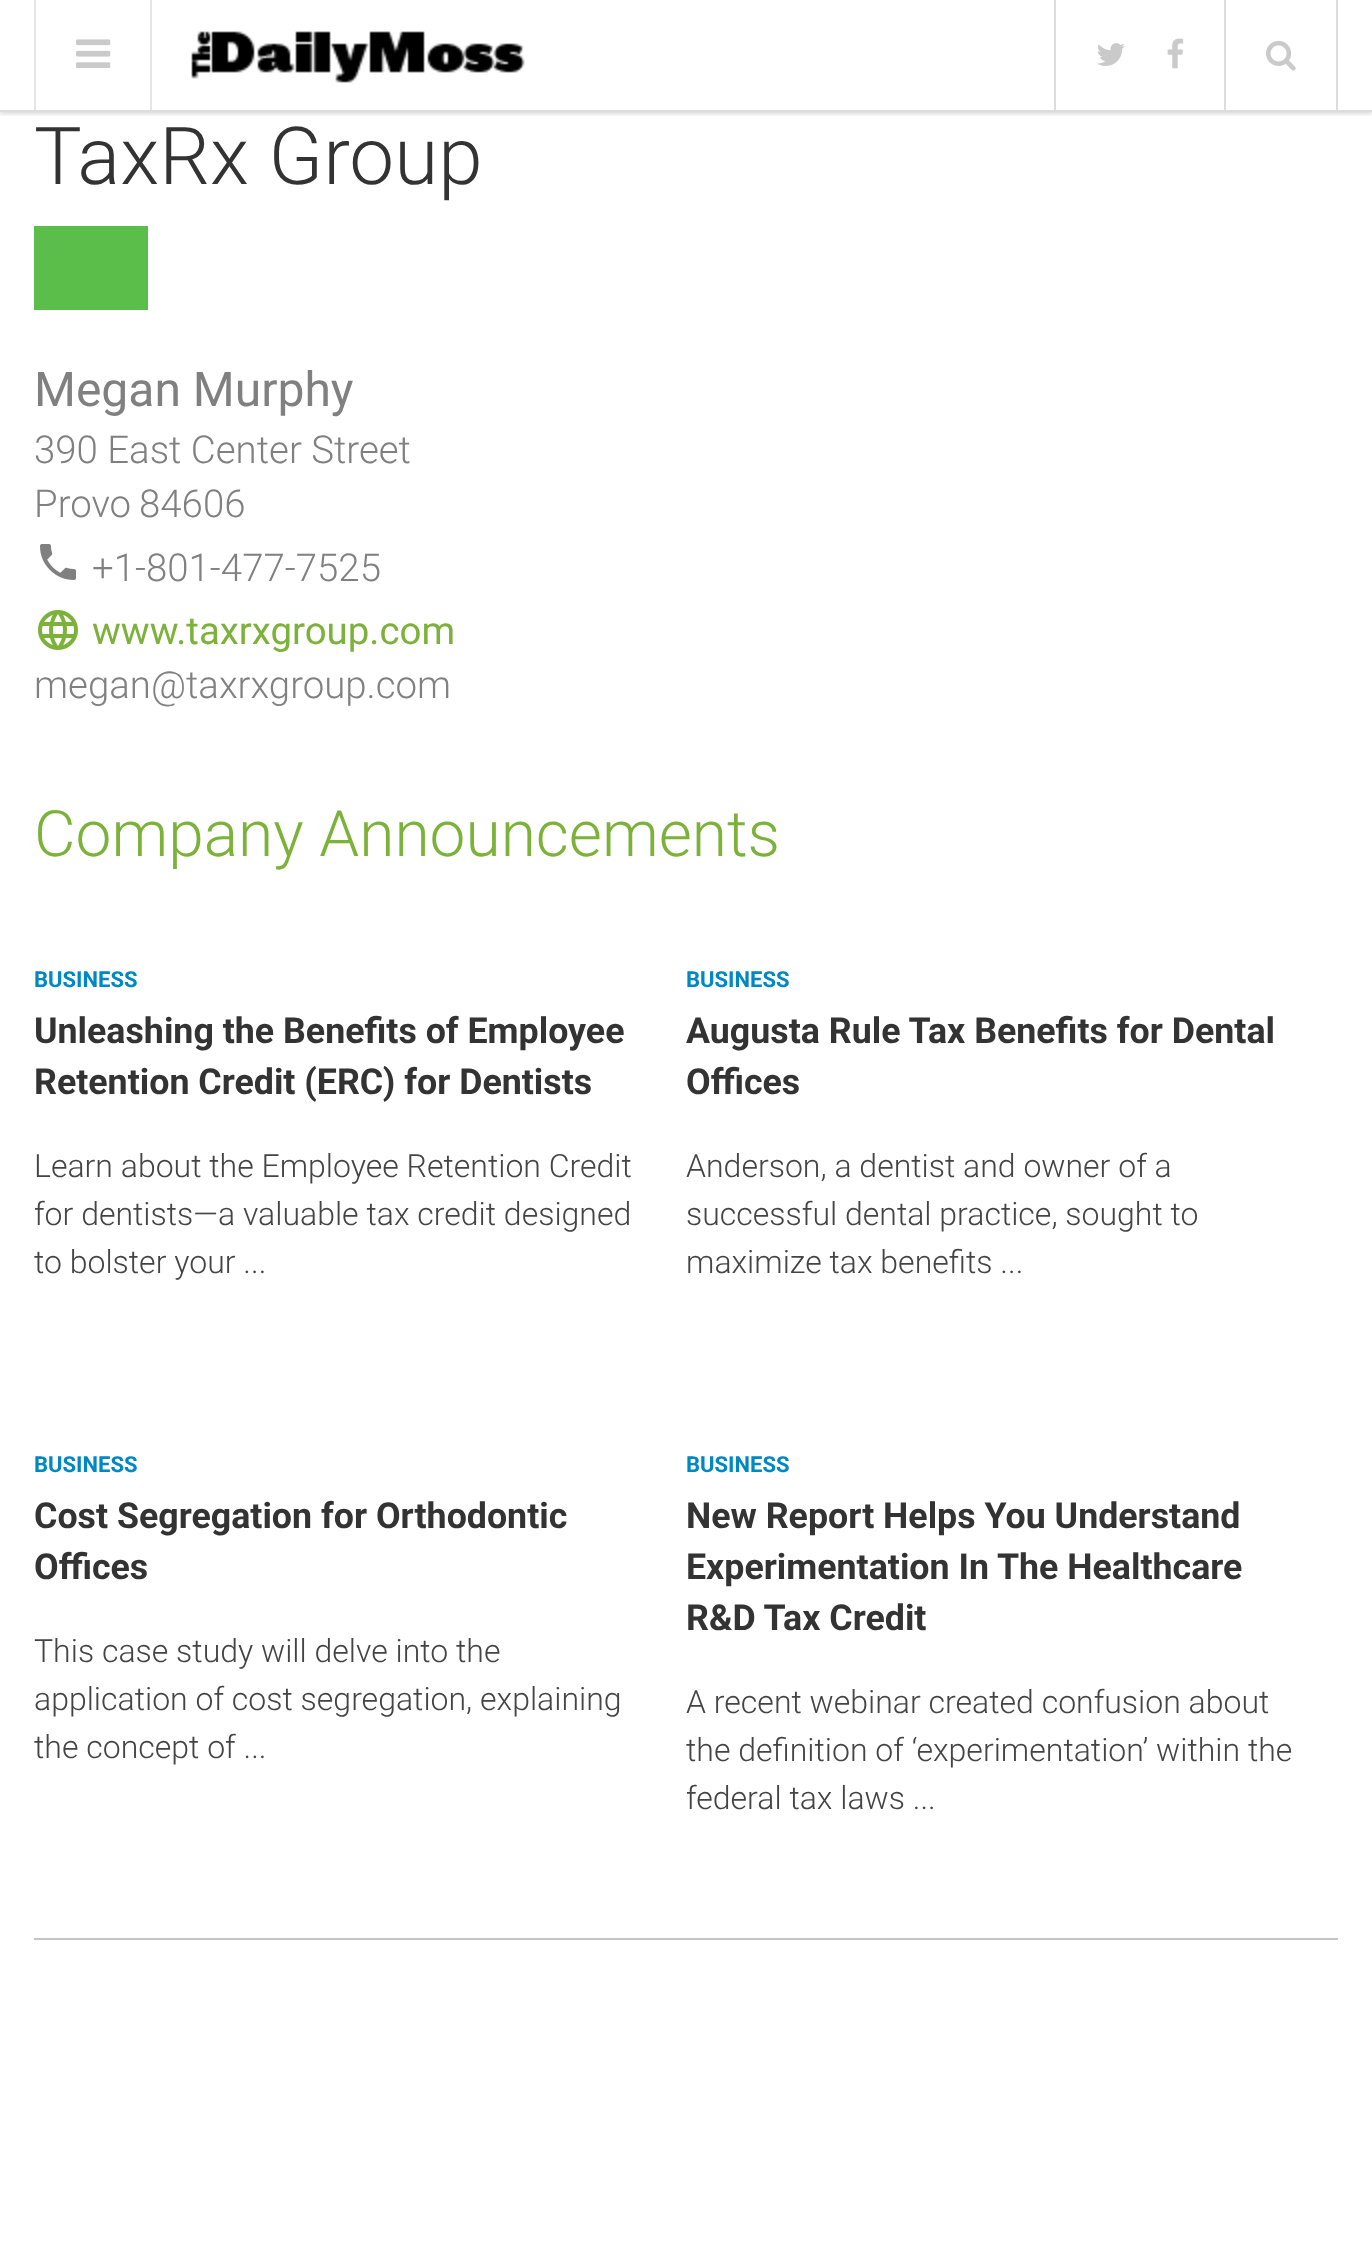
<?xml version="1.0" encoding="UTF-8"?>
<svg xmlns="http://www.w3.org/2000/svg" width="1372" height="2250">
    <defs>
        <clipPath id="clip1"><rect x="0" y="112" width="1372" height="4"/></clipPath>
        <filter id="blur1" x="-50%" y="-200%" width="200%" height="500%"><feGaussianBlur stdDeviation="2"/></filter>
    </defs>
    <rect width="100%" height="100%" fill="#FFFFFF"/>
    <g clip-path="url(#clip1)">
        <rect x="0" y="2" width="1372" height="112" fill="#000000" fill-opacity="0.15" filter="url(#blur1)"/>
    </g>
    <rect x="0" y="110" width="1372" height="2" fill="#DDDDDD"/>
    <rect x="150" y="0" width="2" height="110" fill="#E5E5E5"/>
    <rect x="34" y="0" width="2" height="110" fill="#E5E5E5"/>
    <image x="76" y="39" width="35" height="29" href="img_01.png"/>
    <image x="191" y="31" width="334" height="52" href="img_02.png"/>
    <rect x="1054" y="0" width="2" height="110" fill="#DDDDDD"/>
    <image x="1097" y="43" width="28" height="23" href="img_03.png"/>
    <image x="1167" y="38" width="17" height="31" href="img_04.png"/>
    <rect x="1336" y="0" width="2" height="110" fill="#DDDDDD"/>
    <rect x="1224" y="0" width="2" height="110" fill="#DDDDDD"/>
    <image x="1266" y="40" width="30" height="31" href="img_05.png"/>
    <text x="34" y="184" font-family="Roboto" font-size="80" font-weight="300" fill="#333333">TaxRx Group</text>
    <rect x="34" y="226" width="114" height="84" fill="#5CBE4A"/>
    <text x="34" y="406" font-family="Roboto" font-size="48" fill="#808080">Megan Murphy</text>
    <text font-family="Roboto" font-size="38.4" font-weight="300" fill="#808080">
        <tspan x="34" y="463">390 East Center Street</tspan>
        <tspan x="34" y="517">Provo</tspan>
    </text>
    <text x="139" y="517" font-family="Roboto" font-size="38.4" font-weight="300" fill="#808080">84606</text>
    <image x="40" y="544" width="36" height="36" href="img_06.png"/>
    <text x="92" y="581" font-family="Roboto" font-size="38.4" font-weight="300" fill="#808080">+1-801-477-7525</text>
    <image x="38" y="610" width="40" height="40" href="img_07.png"/>
    <text x="92" y="644" font-family="Roboto" font-size="38.4" fill="#7CB23A">www.taxrxgroup.com</text>
    <text x="34" y="698" font-family="Roboto" font-size="38.4" font-weight="300" fill="#808080">megan@taxrxgroup.com</text>
    <rect x="34" y="1938" width="1304" height="2" fill="#C5C5C5"/>
    <text x="34" y="856" font-family="Roboto" font-size="64" font-weight="300" fill="#7CB23A">Company Announcements</text>
    <text x="34" y="987" font-family="Roboto" font-size="22" font-weight="700" fill="#0088C3">BUSINESS</text>
    <text font-family="Roboto" font-size="35.75" font-weight="700" fill="#333333">
        <tspan x="34" y="1043">Unleashing the Benefits of Employee</tspan>
        <tspan x="34" y="1094">Retention Credit (ERC) for Dentists</tspan>
    </text>
    <text font-family="Roboto" font-size="32" font-weight="300" fill="#444444">
        <tspan x="34" y="1177">Learn about the Employee Retention Credit</tspan>
        <tspan x="34" y="1225">for dentists—a valuable tax credit designed</tspan>
        <tspan x="34" y="1273">to bolster your ...</tspan>
    </text>
    <text x="686" y="987" font-family="Roboto" font-size="22" font-weight="700" fill="#0088C3">BUSINESS</text>
    <text font-family="Roboto" font-size="35.75" font-weight="700" fill="#333333">
        <tspan x="686" y="1043">Augusta Rule Tax Benefits for Dental</tspan>
        <tspan x="686" y="1094">Offices</tspan>
    </text>
    <text font-family="Roboto" font-size="32" font-weight="300" fill="#444444">
        <tspan x="686" y="1177">Anderson, a dentist and owner of a</tspan>
        <tspan x="686" y="1225">successful dental practice, sought to</tspan>
        <tspan x="686" y="1273">maximize tax benefits ...</tspan>
    </text>
    <text x="34" y="1472" font-family="Roboto" font-size="22" font-weight="700" fill="#0088C3">BUSINESS</text>
    <text font-family="Roboto" font-size="35.75" font-weight="700" fill="#333333">
        <tspan x="34" y="1528">Cost Segregation for Orthodontic</tspan>
        <tspan x="34" y="1579">Offices</tspan>
    </text>
    <text font-family="Roboto" font-size="32" font-weight="300" fill="#444444">
        <tspan x="34" y="1662">This case study will delve into the</tspan>
        <tspan x="34" y="1710">application of cost segregation, explaining</tspan>
        <tspan x="34" y="1758">the concept of ...</tspan>
    </text>
    <text x="686" y="1472" font-family="Roboto" font-size="22" font-weight="700" fill="#0088C3">BUSINESS</text>
    <text font-family="Roboto" font-size="35.75" font-weight="700" fill="#333333">
        <tspan x="686" y="1528">New Report Helps You Understand</tspan>
        <tspan x="686" y="1579">Experimentation In The Healthcare</tspan>
        <tspan x="686" y="1630">R&amp;D Tax Credit</tspan>
    </text>
    <text font-family="Roboto" font-size="32" font-weight="300" fill="#444444">
        <tspan x="686" y="1713">A recent webinar created confusion about</tspan>
        <tspan x="686" y="1761">the definition of ‘experimentation’ within the</tspan>
        <tspan x="686" y="1809">federal tax laws ...</tspan>
    </text>
</svg>
